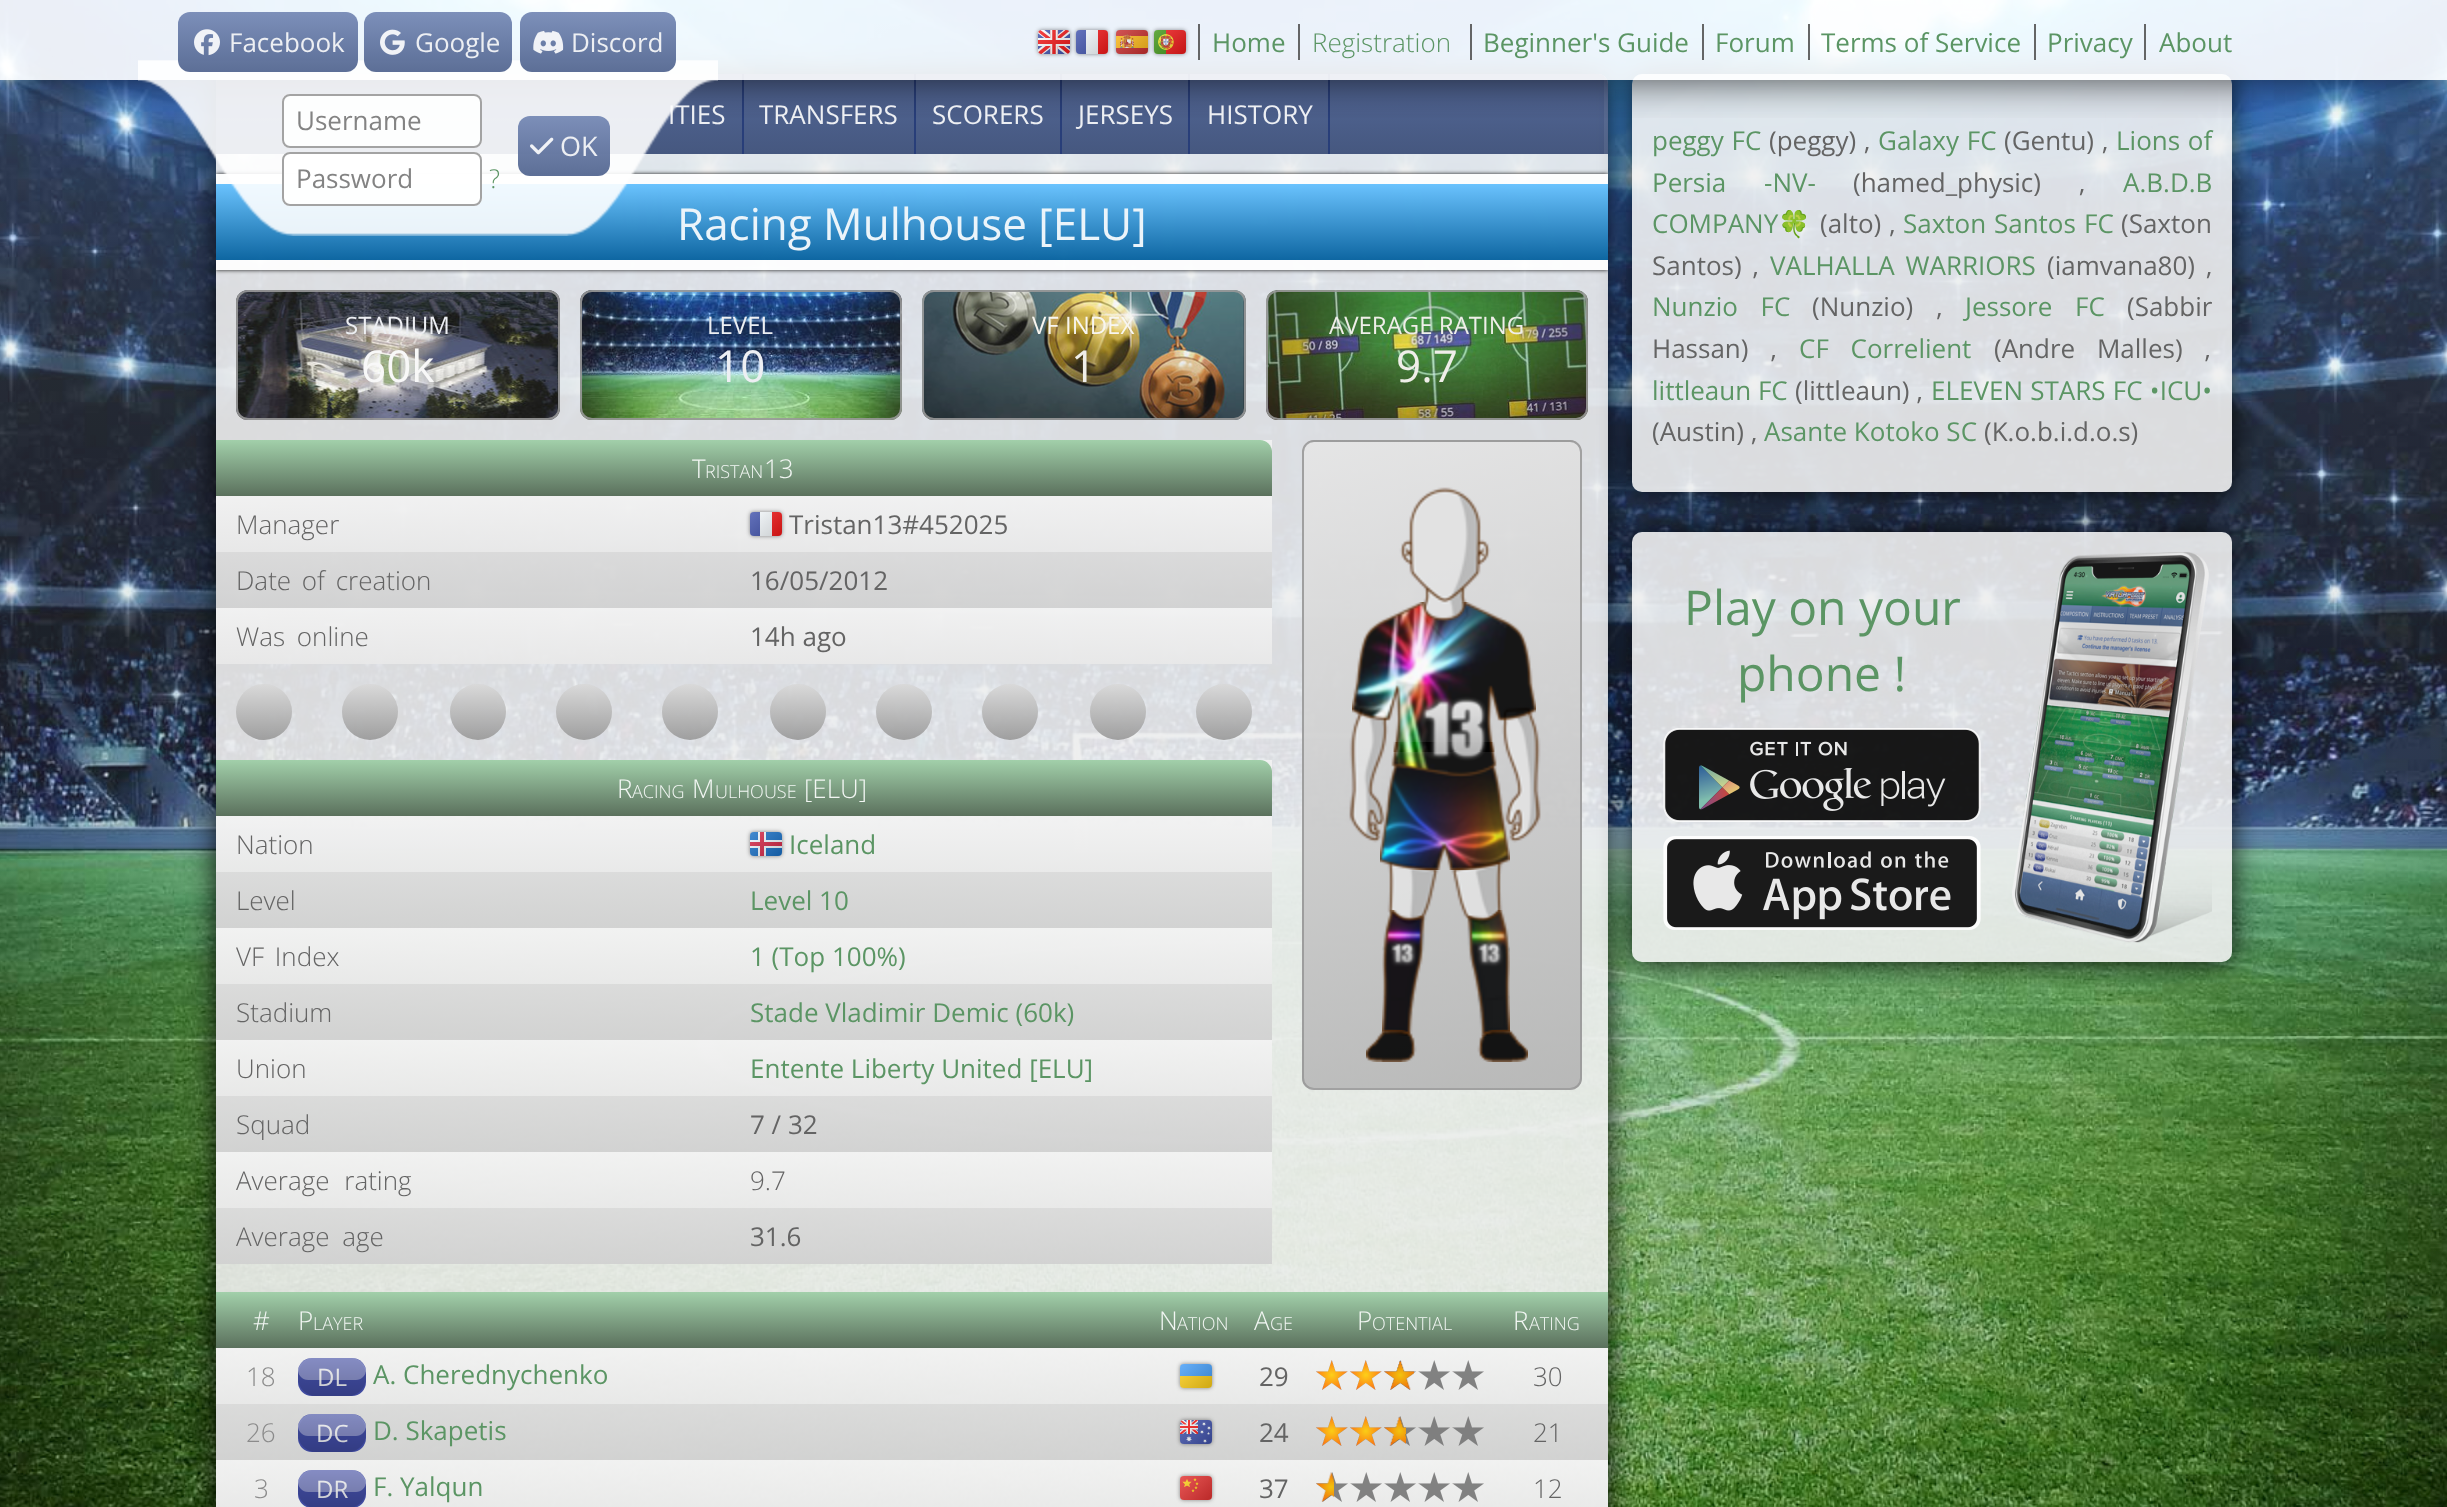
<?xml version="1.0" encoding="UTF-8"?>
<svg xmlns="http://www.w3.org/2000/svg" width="2447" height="1507">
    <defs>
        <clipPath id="clip1"><path d="M 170 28 H 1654 V 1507 H 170 Z M 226 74 H 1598 C 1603.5 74 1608 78.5 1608 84 V 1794 C 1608 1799.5 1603.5 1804 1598 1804 H 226 C 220.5 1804 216 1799.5 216 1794 V 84 C 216 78.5 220.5 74 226 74 Z" clip-rule="evenodd"/></clipPath>
        <filter id="blur1" x="-50%" y="-200%" width="200%" height="500%"><feGaussianBlur stdDeviation="15"/></filter>
        <linearGradient id="g1" gradientUnits="userSpaceOnUse" x1="912" y1="74" x2="912" y2="154"><stop offset="0" stop-color="#526798" stop-opacity="0.9"/><stop offset="1" stop-color="#44567E" stop-opacity="0.9"/></linearGradient>
        <clipPath id="clip2"><rect x="216" y="74" width="1392" height="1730" rx="10"/></clipPath>
        <linearGradient id="g2" gradientUnits="userSpaceOnUse" x1="910" y1="74" x2="910" y2="154"><stop offset="0" stop-color="#526798" stop-opacity="0.9"/><stop offset="1" stop-color="#44567E" stop-opacity="0.9"/></linearGradient>
        <clipPath id="clip3"><path d="M 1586 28 H 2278 V 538 H 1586 Z M 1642 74 H 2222 C 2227.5 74 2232 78.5 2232 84 V 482 C 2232 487.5 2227.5 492 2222 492 H 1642 C 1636.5 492 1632 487.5 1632 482 V 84 C 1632 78.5 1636.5 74 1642 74 Z" clip-rule="evenodd"/></clipPath>
        <clipPath id="clip4"><rect x="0" y="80" width="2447" height="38"/></clipPath>
        <filter id="blur2" x="-50%" y="-200%" width="200%" height="500%"><feGaussianBlur stdDeviation="20"/></filter>
        <clipPath id="clip5"><rect x="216" y="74" width="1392" height="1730" rx="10"/></clipPath>
        <clipPath id="clip6"><path d="M 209 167 H 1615 V 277 H 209 Z M 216 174 H 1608 V 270 H 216 Z" clip-rule="evenodd"/></clipPath>
        <filter id="blur3" x="-50%" y="-200%" width="200%" height="500%"><feGaussianBlur stdDeviation="2"/></filter>
        <linearGradient id="g3" gradientUnits="userSpaceOnUse" x1="912" y1="184" x2="912" y2="260"><stop offset="0" stop-color="#FFFFFF" stop-opacity="0.36"/><stop offset="1" stop-color="#000000" stop-opacity="0.36"/></linearGradient>
        <linearGradient id="g4" gradientUnits="userSpaceOnUse" x1="268" y1="12" x2="268" y2="72"><stop offset="0" stop-color="#7084B2" stop-opacity="0.9"/><stop offset="1" stop-color="#4B5F8B" stop-opacity="0.9"/></linearGradient>
        <linearGradient id="g5" gradientUnits="userSpaceOnUse" x1="438" y1="12" x2="438" y2="72"><stop offset="0" stop-color="#7084B2" stop-opacity="0.9"/><stop offset="1" stop-color="#4B5F8B" stop-opacity="0.9"/></linearGradient>
        <linearGradient id="g6" gradientUnits="userSpaceOnUse" x1="598" y1="12" x2="598" y2="72"><stop offset="0" stop-color="#7084B2" stop-opacity="0.9"/><stop offset="1" stop-color="#4B5F8B" stop-opacity="0.9"/></linearGradient>
        <linearGradient id="g7" gradientUnits="userSpaceOnUse" x1="564" y1="116" x2="564" y2="176"><stop offset="0" stop-color="#7084B2" stop-opacity="0.9"/><stop offset="1" stop-color="#4B5F8B" stop-opacity="0.9"/></linearGradient>
        <clipPath id="clip7"><path d="M 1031 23 H 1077 V 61 H 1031 Z M 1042 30 H 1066 C 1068 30 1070 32 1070 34 V 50 C 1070 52 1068 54 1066 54 H 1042 C 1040 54 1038 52 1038 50 V 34 C 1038 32 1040 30 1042 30 Z" clip-rule="evenodd"/></clipPath>
        <linearGradient id="g8" gradientUnits="userSpaceOnUse" x1="1068" y1="56" x2="1040" y2="28"><stop offset="0" stop-color="#000000" stop-opacity="0.18"/><stop offset="1" stop-color="#FFFFFF" stop-opacity="0.18"/></linearGradient>
        <clipPath id="clip8"><path d="M 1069 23 H 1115 V 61 H 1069 Z M 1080 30 H 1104 C 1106 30 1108 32 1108 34 V 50 C 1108 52 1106 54 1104 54 H 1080 C 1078 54 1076 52 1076 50 V 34 C 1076 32 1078 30 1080 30 Z" clip-rule="evenodd"/></clipPath>
        <linearGradient id="g9" gradientUnits="userSpaceOnUse" x1="1106" y1="56" x2="1078" y2="28"><stop offset="0" stop-color="#000000" stop-opacity="0.18"/><stop offset="1" stop-color="#FFFFFF" stop-opacity="0.18"/></linearGradient>
        <clipPath id="clip9"><path d="M 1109 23 H 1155 V 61 H 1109 Z M 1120 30 H 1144 C 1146 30 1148 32 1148 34 V 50 C 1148 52 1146 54 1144 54 H 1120 C 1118 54 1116 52 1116 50 V 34 C 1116 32 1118 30 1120 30 Z" clip-rule="evenodd"/></clipPath>
        <linearGradient id="g10" gradientUnits="userSpaceOnUse" x1="1146" y1="56" x2="1118" y2="28"><stop offset="0" stop-color="#000000" stop-opacity="0.18"/><stop offset="1" stop-color="#FFFFFF" stop-opacity="0.18"/></linearGradient>
        <clipPath id="clip10"><path d="M 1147 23 H 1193 V 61 H 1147 Z M 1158 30 H 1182 C 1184 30 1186 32 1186 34 V 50 C 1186 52 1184 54 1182 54 H 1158 C 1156 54 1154 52 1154 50 V 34 C 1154 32 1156 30 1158 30 Z" clip-rule="evenodd"/></clipPath>
        <linearGradient id="g11" gradientUnits="userSpaceOnUse" x1="1184" y1="56" x2="1156" y2="28"><stop offset="0" stop-color="#000000" stop-opacity="0.18"/><stop offset="1" stop-color="#FFFFFF" stop-opacity="0.18"/></linearGradient>
        <linearGradient id="g12" gradientUnits="userSpaceOnUse" x1="744" y1="440" x2="744" y2="496"><stop offset="0" stop-color="#F3F3F3" stop-opacity="0.9"/><stop offset="1" stop-color="#E9E9E9" stop-opacity="0.9"/></linearGradient>
        <linearGradient id="g13" gradientUnits="userSpaceOnUse" x1="744" y1="440" x2="744" y2="496"><stop offset="0" stop-color="#99CCA2" stop-opacity="0.9"/><stop offset="1" stop-color="#4B634D" stop-opacity="0.9"/></linearGradient>
        <linearGradient id="g14" gradientUnits="userSpaceOnUse" x1="744" y1="496" x2="744" y2="552"><stop offset="0" stop-color="#F3F3F3" stop-opacity="0.9"/><stop offset="1" stop-color="#E9E9E9" stop-opacity="0.9"/></linearGradient>
        <clipPath id="clip11"><path d="M 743 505 H 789 V 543 H 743 Z M 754 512 H 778 C 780 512 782 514 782 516 V 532 C 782 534 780 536 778 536 H 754 C 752 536 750 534 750 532 V 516 C 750 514 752 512 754 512 Z" clip-rule="evenodd"/></clipPath>
        <linearGradient id="g15" gradientUnits="userSpaceOnUse" x1="780" y1="538" x2="752" y2="510"><stop offset="0" stop-color="#000000" stop-opacity="0.18"/><stop offset="1" stop-color="#FFFFFF" stop-opacity="0.18"/></linearGradient>
        <linearGradient id="g16" gradientUnits="userSpaceOnUse" x1="744" y1="552" x2="744" y2="608"><stop offset="0" stop-color="#DADADA" stop-opacity="0.9"/><stop offset="1" stop-color="#D0D0D0" stop-opacity="0.9"/></linearGradient>
        <linearGradient id="g17" gradientUnits="userSpaceOnUse" x1="744" y1="608" x2="744" y2="664"><stop offset="0" stop-color="#F3F3F3" stop-opacity="0.9"/><stop offset="1" stop-color="#E9E9E9" stop-opacity="0.9"/></linearGradient>
        <linearGradient id="g18" gradientUnits="userSpaceOnUse" x1="264" y1="684" x2="264" y2="740"><stop offset="0" stop-color="#FFFFFF" stop-opacity="0.23"/><stop offset="1" stop-color="#000000" stop-opacity="0.23"/></linearGradient>
        <linearGradient id="g19" gradientUnits="userSpaceOnUse" x1="370" y1="684" x2="370" y2="740"><stop offset="0" stop-color="#FFFFFF" stop-opacity="0.23"/><stop offset="1" stop-color="#000000" stop-opacity="0.23"/></linearGradient>
        <linearGradient id="g20" gradientUnits="userSpaceOnUse" x1="478" y1="684" x2="478" y2="740"><stop offset="0" stop-color="#FFFFFF" stop-opacity="0.23"/><stop offset="1" stop-color="#000000" stop-opacity="0.23"/></linearGradient>
        <linearGradient id="g21" gradientUnits="userSpaceOnUse" x1="584" y1="684" x2="584" y2="740"><stop offset="0" stop-color="#FFFFFF" stop-opacity="0.23"/><stop offset="1" stop-color="#000000" stop-opacity="0.23"/></linearGradient>
        <linearGradient id="g22" gradientUnits="userSpaceOnUse" x1="690" y1="684" x2="690" y2="740"><stop offset="0" stop-color="#FFFFFF" stop-opacity="0.23"/><stop offset="1" stop-color="#000000" stop-opacity="0.23"/></linearGradient>
        <linearGradient id="g23" gradientUnits="userSpaceOnUse" x1="798" y1="684" x2="798" y2="740"><stop offset="0" stop-color="#FFFFFF" stop-opacity="0.23"/><stop offset="1" stop-color="#000000" stop-opacity="0.23"/></linearGradient>
        <linearGradient id="g24" gradientUnits="userSpaceOnUse" x1="904" y1="684" x2="904" y2="740"><stop offset="0" stop-color="#FFFFFF" stop-opacity="0.23"/><stop offset="1" stop-color="#000000" stop-opacity="0.23"/></linearGradient>
        <linearGradient id="g25" gradientUnits="userSpaceOnUse" x1="1010" y1="684" x2="1010" y2="740"><stop offset="0" stop-color="#FFFFFF" stop-opacity="0.23"/><stop offset="1" stop-color="#000000" stop-opacity="0.23"/></linearGradient>
        <linearGradient id="g26" gradientUnits="userSpaceOnUse" x1="1118" y1="684" x2="1118" y2="740"><stop offset="0" stop-color="#FFFFFF" stop-opacity="0.23"/><stop offset="1" stop-color="#000000" stop-opacity="0.23"/></linearGradient>
        <linearGradient id="g27" gradientUnits="userSpaceOnUse" x1="1224" y1="684" x2="1224" y2="740"><stop offset="0" stop-color="#FFFFFF" stop-opacity="0.23"/><stop offset="1" stop-color="#000000" stop-opacity="0.23"/></linearGradient>
        <linearGradient id="g28" gradientUnits="userSpaceOnUse" x1="744" y1="760" x2="744" y2="816"><stop offset="0" stop-color="#F3F3F3" stop-opacity="0.9"/><stop offset="1" stop-color="#E9E9E9" stop-opacity="0.9"/></linearGradient>
        <linearGradient id="g29" gradientUnits="userSpaceOnUse" x1="744" y1="760" x2="744" y2="816"><stop offset="0" stop-color="#99CCA2" stop-opacity="0.9"/><stop offset="1" stop-color="#4B634D" stop-opacity="0.9"/></linearGradient>
        <linearGradient id="g30" gradientUnits="userSpaceOnUse" x1="744" y1="816" x2="744" y2="872"><stop offset="0" stop-color="#F3F3F3" stop-opacity="0.9"/><stop offset="1" stop-color="#E9E9E9" stop-opacity="0.9"/></linearGradient>
        <clipPath id="clip12"><path d="M 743 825 H 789 V 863 H 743 Z M 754 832 H 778 C 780 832 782 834 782 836 V 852 C 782 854 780 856 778 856 H 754 C 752 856 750 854 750 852 V 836 C 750 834 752 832 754 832 Z" clip-rule="evenodd"/></clipPath>
        <linearGradient id="g31" gradientUnits="userSpaceOnUse" x1="780" y1="858" x2="752" y2="830"><stop offset="0" stop-color="#000000" stop-opacity="0.18"/><stop offset="1" stop-color="#FFFFFF" stop-opacity="0.18"/></linearGradient>
        <linearGradient id="g32" gradientUnits="userSpaceOnUse" x1="744" y1="872" x2="744" y2="928"><stop offset="0" stop-color="#DADADA" stop-opacity="0.9"/><stop offset="1" stop-color="#D0D0D0" stop-opacity="0.9"/></linearGradient>
        <linearGradient id="g33" gradientUnits="userSpaceOnUse" x1="744" y1="928" x2="744" y2="984"><stop offset="0" stop-color="#F3F3F3" stop-opacity="0.9"/><stop offset="1" stop-color="#E9E9E9" stop-opacity="0.9"/></linearGradient>
        <linearGradient id="g34" gradientUnits="userSpaceOnUse" x1="744" y1="984" x2="744" y2="1040"><stop offset="0" stop-color="#DADADA" stop-opacity="0.9"/><stop offset="1" stop-color="#D0D0D0" stop-opacity="0.9"/></linearGradient>
        <linearGradient id="g35" gradientUnits="userSpaceOnUse" x1="744" y1="1040" x2="744" y2="1096"><stop offset="0" stop-color="#F3F3F3" stop-opacity="0.9"/><stop offset="1" stop-color="#E9E9E9" stop-opacity="0.9"/></linearGradient>
        <linearGradient id="g36" gradientUnits="userSpaceOnUse" x1="744" y1="1096" x2="744" y2="1152"><stop offset="0" stop-color="#DADADA" stop-opacity="0.9"/><stop offset="1" stop-color="#D0D0D0" stop-opacity="0.9"/></linearGradient>
        <linearGradient id="g37" gradientUnits="userSpaceOnUse" x1="744" y1="1152" x2="744" y2="1208"><stop offset="0" stop-color="#F3F3F3" stop-opacity="0.9"/><stop offset="1" stop-color="#E9E9E9" stop-opacity="0.9"/></linearGradient>
        <linearGradient id="g38" gradientUnits="userSpaceOnUse" x1="744" y1="1208" x2="744" y2="1264"><stop offset="0" stop-color="#DADADA" stop-opacity="0.9"/><stop offset="1" stop-color="#D0D0D0" stop-opacity="0.9"/></linearGradient>
        <clipPath id="clip13"><rect x="1302" y="440" width="280" height="650" rx="12"/></clipPath>
        <linearGradient id="g39" gradientUnits="userSpaceOnUse" x1="1352" y1="-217" x2="1532" y2="455"><stop offset="0" stop-color="#E6E6E6" stop-opacity="0.9"/><stop offset="1" stop-color="#B3B3B3" stop-opacity="0.9"/></linearGradient>
        <linearGradient id="g40" gradientUnits="userSpaceOnUse" x1="1076" y1="429" x2="1256" y2="1101"><stop offset="0" stop-color="#E6E6E6" stop-opacity="0.9"/><stop offset="1" stop-color="#B3B3B3" stop-opacity="0.9"/></linearGradient>
        <linearGradient id="g41" gradientUnits="userSpaceOnUse" x1="1352" y1="429" x2="1532" y2="1101"><stop offset="0" stop-color="#E6E6E6" stop-opacity="0.9"/><stop offset="1" stop-color="#B3B3B3" stop-opacity="0.9"/></linearGradient>
        <linearGradient id="g42" gradientUnits="userSpaceOnUse" x1="1628" y1="429" x2="1808" y2="1101"><stop offset="0" stop-color="#E6E6E6" stop-opacity="0.9"/><stop offset="1" stop-color="#B3B3B3" stop-opacity="0.9"/></linearGradient>
        <linearGradient id="g43" gradientUnits="userSpaceOnUse" x1="1352" y1="1075" x2="1532" y2="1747"><stop offset="0" stop-color="#E6E6E6" stop-opacity="0.9"/><stop offset="1" stop-color="#B3B3B3" stop-opacity="0.9"/></linearGradient>
        <linearGradient id="g44" gradientUnits="userSpaceOnUse" x1="912" y1="1292" x2="912" y2="1348"><stop offset="0" stop-color="#F3F3F3" stop-opacity="0.9"/><stop offset="1" stop-color="#E9E9E9" stop-opacity="0.9"/></linearGradient>
        <linearGradient id="g45" gradientUnits="userSpaceOnUse" x1="254" y1="1292" x2="254" y2="1348"><stop offset="0" stop-color="#99CCA2" stop-opacity="0.9"/><stop offset="1" stop-color="#4B634D" stop-opacity="0.9"/></linearGradient>
        <linearGradient id="g46" gradientUnits="userSpaceOnUse" x1="722" y1="1292" x2="722" y2="1348"><stop offset="0" stop-color="#99CCA2" stop-opacity="0.9"/><stop offset="1" stop-color="#4B634D" stop-opacity="0.9"/></linearGradient>
        <linearGradient id="g47" gradientUnits="userSpaceOnUse" x1="1195" y1="1292" x2="1195" y2="1348"><stop offset="0" stop-color="#99CCA2" stop-opacity="0.9"/><stop offset="1" stop-color="#4B634D" stop-opacity="0.9"/></linearGradient>
        <linearGradient id="g48" gradientUnits="userSpaceOnUse" x1="1274" y1="1292" x2="1274" y2="1348"><stop offset="0" stop-color="#99CCA2" stop-opacity="0.9"/><stop offset="1" stop-color="#4B634D" stop-opacity="0.9"/></linearGradient>
        <linearGradient id="g49" gradientUnits="userSpaceOnUse" x1="1406" y1="1292" x2="1406" y2="1348"><stop offset="0" stop-color="#99CCA2" stop-opacity="0.9"/><stop offset="1" stop-color="#4B634D" stop-opacity="0.9"/></linearGradient>
        <linearGradient id="g50" gradientUnits="userSpaceOnUse" x1="1555" y1="1292" x2="1555" y2="1348"><stop offset="0" stop-color="#99CCA2" stop-opacity="0.9"/><stop offset="1" stop-color="#4B634D" stop-opacity="0.9"/></linearGradient>
        <linearGradient id="g51" gradientUnits="userSpaceOnUse" x1="912" y1="1348" x2="912" y2="1404"><stop offset="0" stop-color="#F3F3F3" stop-opacity="0.9"/><stop offset="1" stop-color="#E9E9E9" stop-opacity="0.9"/></linearGradient>
        <linearGradient id="g52" gradientUnits="userSpaceOnUse" x1="332" y1="1358" x2="332" y2="1396"><stop offset="0" stop-color="#000000" stop-opacity="0"/><stop offset="1" stop-color="#000000" stop-opacity="0.18"/></linearGradient>
        <clipPath id="clip14"><path d="M 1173 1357 H 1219 V 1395 H 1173 Z M 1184 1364 H 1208 C 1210 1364 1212 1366 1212 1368 V 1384 C 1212 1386 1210 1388 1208 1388 H 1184 C 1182 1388 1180 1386 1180 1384 V 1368 C 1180 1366 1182 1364 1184 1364 Z" clip-rule="evenodd"/></clipPath>
        <linearGradient id="g53" gradientUnits="userSpaceOnUse" x1="1210" y1="1390" x2="1182" y2="1362"><stop offset="0" stop-color="#000000" stop-opacity="0.18"/><stop offset="1" stop-color="#FFFFFF" stop-opacity="0.18"/></linearGradient>
        <linearGradient id="g54" gradientUnits="userSpaceOnUse" x1="912" y1="1404" x2="912" y2="1460"><stop offset="0" stop-color="#DADADA" stop-opacity="0.9"/><stop offset="1" stop-color="#D0D0D0" stop-opacity="0.9"/></linearGradient>
        <linearGradient id="g55" gradientUnits="userSpaceOnUse" x1="332" y1="1414" x2="332" y2="1452"><stop offset="0" stop-color="#000000" stop-opacity="0"/><stop offset="1" stop-color="#000000" stop-opacity="0.18"/></linearGradient>
        <clipPath id="clip15"><path d="M 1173 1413 H 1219 V 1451 H 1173 Z M 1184 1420 H 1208 C 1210 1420 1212 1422 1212 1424 V 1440 C 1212 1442 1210 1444 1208 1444 H 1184 C 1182 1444 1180 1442 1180 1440 V 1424 C 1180 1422 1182 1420 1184 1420 Z" clip-rule="evenodd"/></clipPath>
        <linearGradient id="g56" gradientUnits="userSpaceOnUse" x1="1210" y1="1446" x2="1182" y2="1418"><stop offset="0" stop-color="#000000" stop-opacity="0.18"/><stop offset="1" stop-color="#FFFFFF" stop-opacity="0.18"/></linearGradient>
        <linearGradient id="g57" gradientUnits="userSpaceOnUse" x1="912" y1="1460" x2="912" y2="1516"><stop offset="0" stop-color="#F3F3F3" stop-opacity="0.9"/><stop offset="1" stop-color="#E9E9E9" stop-opacity="0.9"/></linearGradient>
        <linearGradient id="g58" gradientUnits="userSpaceOnUse" x1="332" y1="1470" x2="332" y2="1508"><stop offset="0" stop-color="#000000" stop-opacity="0"/><stop offset="1" stop-color="#000000" stop-opacity="0.18"/></linearGradient>
        <clipPath id="clip16"><path d="M 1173 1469 H 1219 V 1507 H 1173 Z M 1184 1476 H 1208 C 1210 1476 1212 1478 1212 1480 V 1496 C 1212 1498 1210 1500 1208 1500 H 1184 C 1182 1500 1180 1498 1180 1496 V 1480 C 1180 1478 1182 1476 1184 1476 Z" clip-rule="evenodd"/></clipPath>
        <linearGradient id="g59" gradientUnits="userSpaceOnUse" x1="1210" y1="1502" x2="1182" y2="1474"><stop offset="0" stop-color="#000000" stop-opacity="0.18"/><stop offset="1" stop-color="#FFFFFF" stop-opacity="0.18"/></linearGradient>
        <clipPath id="clip17"><path d="M 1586 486 H 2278 V 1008 H 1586 Z M 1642 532 H 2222 C 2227.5 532 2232 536.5 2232 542 V 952 C 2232 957.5 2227.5 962 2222 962 H 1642 C 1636.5 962 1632 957.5 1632 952 V 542 C 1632 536.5 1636.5 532 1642 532 Z" clip-rule="evenodd"/></clipPath>
    </defs>
    <rect width="100%" height="100%" fill="#FFFFFF"/>
    <image x="0" y="0" width="2447" height="1507" href="img_01.png"/>
    <g clip-path="url(#clip1)">
        <rect x="216" y="74" width="1392" height="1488" rx="10" fill="#000000" fill-opacity="0.9" filter="url(#blur1)"/>
    </g>
    <rect x="216" y="74" width="1392" height="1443" rx="10" fill="#F0F0F0" fill-opacity="0.9"/>
    <path d="M 226 74 H 1598 C 1603.5 74 1608 78.5 1608 84 V 154 H 216 V 84 C 216 78.5 220.5 74 226 74 Z" fill="url(#g1)"/>
    <g clip-path="url(#clip2)">
        <path d="M 226 74 H 1604 V 154 H 216 V 84 C 216 78.5 220.5 74 226 74 Z" fill="url(#g2)"/>
    </g>
    <rect x="742" y="74" width="2" height="80" fill="#253B78" fill-opacity="0.9"/>
    <rect x="914" y="74" width="2" height="80" fill="#253B78" fill-opacity="0.9"/>
    <rect x="1060" y="74" width="2" height="80" fill="#253B78" fill-opacity="0.9"/>
    <rect x="1188" y="74" width="2" height="80" fill="#253B78" fill-opacity="0.9"/>
    <rect x="1328" y="74" width="2" height="80" fill="#253B78" fill-opacity="0.9"/>
    <g clip-path="url(#clip3)">
        <rect x="1632" y="74" width="600" height="418" rx="10" fill="#000000" fill-opacity="0.9" filter="url(#blur1)"/>
    </g>
    <rect x="1632" y="74" width="600" height="418" rx="10" fill="#F0F0F0" fill-opacity="0.9"/>
    <g clip-path="url(#clip4)">
        <rect x="0" y="0" width="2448" height="80" fill="#000000" fill-opacity="0.72" filter="url(#blur2)"/>
    </g>
    <rect x="0" y="0" width="2447" height="80" fill="#FFFFFF" fill-opacity="0.9"/>
    <text x="668" y="124" font-family="Open Sans" font-size="26" fill="#EDEFF3">ITIES</text>
    <g clip-path="url(#clip5)">
        <g clip-path="url(#clip6)">
            <rect x="216" y="174" width="1392" height="96" fill="#000000" fill-opacity="0.9" filter="url(#blur3)"/>
        </g>
    </g>
    <rect x="216" y="184" width="1392" height="76" fill="#0099FF" fill-opacity="0.9"/>
    <rect x="216" y="184" width="1392" height="76" fill="url(#g3)"/>
    <rect x="216" y="174" width="1392" height="10" fill="#FFFFFF" fill-opacity="0.9"/>
    <text x="677" y="240" font-family="Open Sans" font-size="44" fill="#EBF4FA">Racing Mulhouse [ELU]</text>
    <image x="138" y="60" width="580" height="176" href="img_02.png"/>
    <rect x="178" y="12" width="180" height="60" rx="12" fill="url(#g4)"/>
    <image x="194" y="29" width="26" height="27" href="img_03.png"/>
    <text x="229" y="52" font-family="Open Sans" font-size="26" fill="#EDEFF3">Facebook</text>
    <rect x="364" y="12" width="148" height="60" rx="12" fill="url(#g5)"/>
    <image x="380" y="29" width="25" height="26" href="img_04.png"/>
    <text x="415" y="52" font-family="Open Sans" font-size="26" fill="#EDEFF3">Google</text>
    <rect x="520" y="12" width="156" height="60" rx="12" fill="url(#g6)"/>
    <image x="533" y="30" width="31" height="24" href="img_05.png"/>
    <text x="571" y="52" font-family="Open Sans" font-size="26" fill="#EDEFF3">Discord</text>
    <rect x="282" y="94" width="200" height="54" rx="8" fill="#FFFFFF" fill-opacity="0.9"/>
    <rect x="283" y="95" width="198" height="52" rx="7" fill="none" stroke="#999999" stroke-opacity="0.9" stroke-width="2"/>
    <text x="296" y="130" font-family="Open Sans" font-size="26" fill="#838383">Username</text>
    <rect x="282" y="152" width="200" height="54" rx="8" fill="#FFFFFF" fill-opacity="0.9"/>
    <rect x="283" y="153" width="198" height="52" rx="7" fill="none" stroke="#999999" stroke-opacity="0.9" stroke-width="2"/>
    <text x="296" y="188" font-family="Open Sans" font-size="26" fill="#838383">Password</text>
    <text x="489" y="188" font-family="Open Sans" font-size="26" font-weight="300" fill="#5B9564">?</text>
    <rect x="518" y="116" width="92" height="60" rx="12" fill="url(#g7)"/>
    <image x="530" y="137" width="24" height="18" href="img_06.png"/>
    <text x="560" y="156" font-family="Open Sans" font-size="27" fill="#EDEFF3">OK</text>
    <rect x="1198" y="24" width="2" height="36" fill="#555555" fill-opacity="0.9"/>
    <g clip-path="url(#clip7)">
        <rect x="1038" y="30" width="32" height="24" rx="4" fill="#000000" fill-opacity="0.45" filter="url(#blur3)"/>
    </g>
    <image x="1038" y="30" width="32" height="24" href="img_07.png"/>
    <rect x="1038" y="30" width="32" height="24" rx="4" fill="url(#g8)"/>
    <g clip-path="url(#clip8)">
        <rect x="1076" y="30" width="32" height="24" rx="4" fill="#000000" fill-opacity="0.45" filter="url(#blur3)"/>
    </g>
    <image x="1076" y="30" width="32" height="24" href="img_08.png"/>
    <rect x="1076" y="30" width="32" height="24" rx="4" fill="url(#g9)"/>
    <g clip-path="url(#clip9)">
        <rect x="1116" y="30" width="32" height="24" rx="4" fill="#000000" fill-opacity="0.45" filter="url(#blur3)"/>
    </g>
    <image x="1116" y="30" width="32" height="24" href="img_09.png"/>
    <rect x="1116" y="30" width="32" height="24" rx="4" fill="url(#g10)"/>
    <g clip-path="url(#clip10)">
        <rect x="1154" y="30" width="32" height="24" rx="4" fill="#000000" fill-opacity="0.45" filter="url(#blur3)"/>
    </g>
    <image x="1154" y="30" width="32" height="24" href="img_10.png"/>
    <rect x="1154" y="30" width="32" height="24" rx="4" fill="url(#g11)"/>
    <rect x="1298" y="24" width="2" height="36" fill="#555555" fill-opacity="0.9"/>
    <text x="1212" y="52" font-family="Open Sans" font-size="26" fill="#5B9564">Home</text>
    <rect x="1470" y="24" width="2" height="36" fill="#555555" fill-opacity="0.9"/>
    <text x="1312" y="52" font-family="Open Sans" font-size="26" font-weight="300" fill="#5B9564">Registration</text>
    <rect x="1702" y="24" width="2" height="36" fill="#555555" fill-opacity="0.9"/>
    <text x="1483" y="52" font-family="Open Sans" font-size="26" fill="#5B9564">Beginner's Guide</text>
    <rect x="1808" y="24" width="2" height="36" fill="#555555" fill-opacity="0.9"/>
    <text x="1715" y="52" font-family="Open Sans" font-size="26" fill="#5B9564">Forum</text>
    <rect x="2034" y="24" width="2" height="36" fill="#555555" fill-opacity="0.9"/>
    <text x="1821" y="52" font-family="Open Sans" font-size="26" fill="#5B9564">Terms of Service</text>
    <rect x="2144" y="24" width="2" height="36" fill="#555555" fill-opacity="0.9"/>
    <text x="2047" y="52" font-family="Open Sans" font-size="26" fill="#5B9564">Privacy</text>
    <text x="2159" y="52" font-family="Open Sans" font-size="26" fill="#5B9564">About</text>
    <text x="759" y="124" font-family="Open Sans" font-size="26" fill="#EDEFF3">TRANSFERS</text>
    <text x="932" y="124" font-family="Open Sans" font-size="26" fill="#EDEFF3">SCORERS</text>
    <text x="1078" y="124" font-family="Open Sans" font-size="26" fill="#EDEFF3">JERSEYS</text>
    <text x="1207" y="124" font-family="Open Sans" font-size="26" fill="#EDEFF3">HISTORY</text>
    <rect x="216" y="260" width="1392" height="10" fill="#FFFFFF" fill-opacity="0.9"/>
    <rect x="236" y="290" width="324" height="130" rx="12" fill="#CCCCCC" fill-opacity="0.9"/>
    <image x="236" y="290" width="324" height="130" href="img_11.png"/>
    <rect x="237" y="291" width="322" height="128" rx="11" fill="none" stroke="#999999" stroke-opacity="0.9" stroke-width="2"/>
    <text x="345" y="334" font-family="Open Sans" font-size="24" fill="#EDEFF3">STADIUM</text>
    <text x="361" y="382" font-family="Open Sans" font-size="44" fill="#F8F8F8">60k</text>
    <rect x="580" y="290" width="322" height="130" rx="12" fill="#CCCCCC" fill-opacity="0.9"/>
    <image x="580" y="290" width="322" height="130" href="img_12.png"/>
    <rect x="581" y="291" width="320" height="128" rx="11" fill="none" stroke="#999999" stroke-opacity="0.9" stroke-width="2"/>
    <text x="707" y="334" font-family="Open Sans" font-size="24" fill="#EDEFF3">LEVEL</text>
    <text x="715" y="382" font-family="Open Sans" font-size="44" fill="#EDEFF3">10</text>
    <rect x="922" y="290" width="324" height="130" rx="12" fill="#CCCCCC" fill-opacity="0.9"/>
    <image x="922" y="290" width="324" height="130" href="img_13.png"/>
    <rect x="923" y="291" width="322" height="128" rx="11" fill="none" stroke="#999999" stroke-opacity="0.9" stroke-width="2"/>
    <text x="1032" y="334" font-family="Open Sans" font-size="24" fill="#F8F6F0">VF INDEX</text>
    <text x="1071" y="382" font-family="Open Sans" font-size="44" fill="#EFEEE9">1</text>
    <rect x="1266" y="290" width="322" height="130" rx="12" fill="#CCCCCC" fill-opacity="0.9"/>
    <image x="1266" y="290" width="322" height="130" href="img_14.png"/>
    <rect x="1267" y="291" width="320" height="128" rx="11" fill="none" stroke="#999999" stroke-opacity="0.9" stroke-width="2"/>
    <text x="1329" y="334" font-family="Open Sans" font-size="24" fill="#EFEEE9">AVERAGE RATING</text>
    <text x="1396" y="382" font-family="Open Sans" font-size="44" fill="#EFEEE9">9.7</text>
    <rect x="216" y="440" width="1056" height="56" fill="url(#g12)"/>
    <path d="M 216 440 H 1260 C 1266.5 440 1272 445.5 1272 452 V 496 H 216 Z" fill="url(#g13)"/>
    <text x="692" y="478" font-family="Open Sans" font-size="26" font-weight="300" fill="#F2F6F3">T</text>
    <text x="705" y="478" font-family="Open Sans" font-size="18" font-weight="300" fill="#F2F6F3">RISTAN</text>
    <text x="764" y="478" font-family="Open Sans" font-size="26" font-weight="300" fill="#F2F6F3">13</text>
    <rect x="216" y="496" width="1056" height="56" fill="url(#g14)"/>
    <text x="236" y="534" font-family="Open Sans" font-size="26" font-weight="300" fill="#646464">Manager</text>
    <g clip-path="url(#clip11)">
        <rect x="750" y="512" width="32" height="24" rx="4" fill="#000000" fill-opacity="0.45" filter="url(#blur3)"/>
    </g>
    <image x="750" y="512" width="32" height="24" href="img_15.png"/>
    <rect x="750" y="512" width="32" height="24" rx="4" fill="url(#g15)"/>
    <text x="789" y="534" font-family="Open Sans" font-size="26" fill="#646464">Tristan13#452025</text>
    <rect x="216" y="552" width="1056" height="56" fill="url(#g16)"/>
    <text x="236" y="590" word-spacing="4" font-family="Open Sans" font-size="26" font-weight="300" fill="#646464">Date of creation</text>
    <text x="750" y="590" font-family="Open Sans" font-size="26" fill="#646464">16/05/2012</text>
    <rect x="216" y="608" width="1056" height="56" fill="url(#g17)"/>
    <text x="236" y="646" word-spacing="5" font-family="Open Sans" font-size="26" font-weight="300" fill="#646464">Was online</text>
    <text x="750" y="646" font-family="Open Sans" font-size="26" fill="#646464">14h ago</text>
    <circle cx="264" cy="712" r="28" fill="#CCCCCC" fill-opacity="0.9"/>
    <circle cx="264" cy="712" r="28" fill="url(#g18)"/>
    <circle cx="370" cy="712" r="28" fill="#CCCCCC" fill-opacity="0.9"/>
    <circle cx="370" cy="712" r="28" fill="url(#g19)"/>
    <circle cx="478" cy="712" r="28" fill="#CCCCCC" fill-opacity="0.9"/>
    <circle cx="478" cy="712" r="28" fill="url(#g20)"/>
    <circle cx="584" cy="712" r="28" fill="#CCCCCC" fill-opacity="0.9"/>
    <circle cx="584" cy="712" r="28" fill="url(#g21)"/>
    <circle cx="690" cy="712" r="28" fill="#CCCCCC" fill-opacity="0.9"/>
    <circle cx="690" cy="712" r="28" fill="url(#g22)"/>
    <circle cx="798" cy="712" r="28" fill="#CCCCCC" fill-opacity="0.9"/>
    <circle cx="798" cy="712" r="28" fill="url(#g23)"/>
    <circle cx="904" cy="712" r="28" fill="#CCCCCC" fill-opacity="0.9"/>
    <circle cx="904" cy="712" r="28" fill="url(#g24)"/>
    <circle cx="1010" cy="712" r="28" fill="#CCCCCC" fill-opacity="0.9"/>
    <circle cx="1010" cy="712" r="28" fill="url(#g25)"/>
    <circle cx="1118" cy="712" r="28" fill="#CCCCCC" fill-opacity="0.9"/>
    <circle cx="1118" cy="712" r="28" fill="url(#g26)"/>
    <circle cx="1224" cy="712" r="28" fill="#CCCCCC" fill-opacity="0.9"/>
    <circle cx="1224" cy="712" r="28" fill="url(#g27)"/>
    <rect x="216" y="760" width="1056" height="56" fill="url(#g28)"/>
    <path d="M 216 760 H 1260 C 1266.5 760 1272 765.5 1272 772 V 816 H 216 Z" fill="url(#g29)"/>
    <text x="617" y="798" font-family="Open Sans" font-size="26" font-weight="300" fill="#F2F6F3">R</text>
    <text x="632" y="798" font-family="Open Sans" font-size="18" font-weight="300" fill="#F2F6F3">ACING</text>
    <text x="692" y="798" font-family="Open Sans" font-size="26" font-weight="300" fill="#F2F6F3">M</text>
    <text x="715" y="798" font-family="Open Sans" font-size="18" font-weight="300" fill="#F2F6F3">ULHOUSE</text>
    <text x="804" y="798" font-family="Open Sans" font-size="26" font-weight="300" fill="#F2F6F3">[ELU]</text>
    <rect x="216" y="816" width="1056" height="56" fill="url(#g30)"/>
    <text x="236" y="854" font-family="Open Sans" font-size="26" font-weight="300" fill="#646464">Nation</text>
    <g clip-path="url(#clip12)">
        <rect x="750" y="832" width="32" height="24" rx="4" fill="#000000" fill-opacity="0.45" filter="url(#blur3)"/>
    </g>
    <image x="750" y="832" width="32" height="24" href="img_16.png"/>
    <rect x="750" y="832" width="32" height="24" rx="4" fill="url(#g31)"/>
    <text x="789" y="854" font-family="Open Sans" font-size="26" fill="#5B9564">Iceland</text>
    <rect x="216" y="872" width="1056" height="56" fill="url(#g32)"/>
    <text x="236" y="910" font-family="Open Sans" font-size="26" font-weight="300" fill="#646464">Level</text>
    <text x="750" y="910" font-family="Open Sans" font-size="26" fill="#5B9564">Level 10</text>
    <rect x="216" y="928" width="1056" height="56" fill="url(#g33)"/>
    <text x="236" y="966" word-spacing="4" font-family="Open Sans" font-size="26" font-weight="300" fill="#646464">VF Index</text>
    <text x="750" y="966" font-family="Open Sans" font-size="26" fill="#5B9564">1 (Top 100%)</text>
    <rect x="216" y="984" width="1056" height="56" fill="url(#g34)"/>
    <text x="236" y="1022" font-family="Open Sans" font-size="26" font-weight="300" fill="#646464">Stadium</text>
    <text x="750" y="1022" font-family="Open Sans" font-size="26" fill="#5B9564">Stade Vladimir Demic (60k)</text>
    <rect x="216" y="1040" width="1056" height="56" fill="url(#g35)"/>
    <text x="236" y="1078" font-family="Open Sans" font-size="26" font-weight="300" fill="#646464">Union</text>
    <text x="750" y="1078" font-family="Open Sans" font-size="26" fill="#5B9564">Entente Liberty United [ELU]</text>
    <rect x="216" y="1096" width="1056" height="56" fill="url(#g36)"/>
    <text x="236" y="1134" font-family="Open Sans" font-size="26" font-weight="300" fill="#646464">Squad</text>
    <text x="750" y="1134" font-family="Open Sans" font-size="26" fill="#646464">7 / 32</text>
    <rect x="216" y="1152" width="1056" height="56" fill="url(#g37)"/>
    <text x="236" y="1190" word-spacing="8" font-family="Open Sans" font-size="26" font-weight="300" fill="#646464">Average rating</text>
    <text x="750" y="1190" font-family="Open Sans" font-size="26" font-weight="300" fill="#646464">9.7</text>
    <rect x="216" y="1208" width="1056" height="56" fill="url(#g38)"/>
    <text x="236" y="1246" word-spacing="6" font-family="Open Sans" font-size="26" font-weight="300" fill="#646464">Average age</text>
    <text x="750" y="1246" font-family="Open Sans" font-size="26" fill="#646464">31.6</text>
    <g clip-path="url(#clip13)">
        <rect x="1304" y="440" width="276" height="2" fill="url(#g39)"/>
        <rect x="1302" y="442" width="2" height="646" fill="url(#g40)"/>
        <rect x="1304" y="442" width="276" height="646" fill="url(#g41)"/>
        <rect x="1580" y="442" width="2" height="646" fill="url(#g42)"/>
        <rect x="1304" y="1088" width="276" height="2" fill="url(#g43)"/>
    </g>
    <rect x="1303" y="441" width="278" height="648" rx="11" fill="none" stroke="#999999" stroke-opacity="0.9" stroke-width="2"/>
    <image x="1349" y="487" width="192" height="438" href="img_17.png"/>
    <image x="1380" y="742" width="130" height="128" href="img_19.png"/>
    <image x="1352" y="602" width="184" height="150" href="img_18.png"/>
    <image x="1382" y="910" width="128" height="126" href="img_20.png"/>
    <image x="1366" y="1030" width="162" height="32" href="img_21.png"/>
    <rect x="216" y="1292" width="1392" height="56" fill="url(#g44)"/>
    <rect x="216" y="1292" width="76" height="56" fill="url(#g45)"/>
    <text x="253" y="1330" font-family="Open Sans" font-size="26" font-weight="300" fill="#F2F6F3">#</text>
    <rect x="292" y="1292" width="860" height="56" fill="url(#g46)"/>
    <text x="298" y="1330" font-family="Open Sans" font-size="26" font-weight="300" fill="#F2F6F3">P</text>
    <text x="313" y="1330" font-family="Open Sans" font-size="18" font-weight="300" fill="#F2F6F3">LAYER</text>
    <rect x="1152" y="1292" width="86" height="56" fill="url(#g47)"/>
    <text x="1159" y="1330" font-family="Open Sans" font-size="26" font-weight="300" fill="#F2F6F3">N</text>
    <text x="1177" y="1330" font-family="Open Sans" font-size="18" font-weight="300" fill="#F2F6F3">ATION</text>
    <rect x="1238" y="1292" width="72" height="56" fill="url(#g48)"/>
    <text x="1254" y="1330" font-family="Open Sans" font-size="26" font-weight="300" fill="#F2F6F3">A</text>
    <text x="1270" y="1330" font-family="Open Sans" font-size="18" font-weight="300" fill="#F2F6F3">GE</text>
    <rect x="1310" y="1292" width="192" height="56" fill="url(#g49)"/>
    <text x="1357" y="1330" font-family="Open Sans" font-size="26" font-weight="300" fill="#F2F6F3">P</text>
    <text x="1372" y="1330" font-family="Open Sans" font-size="18" font-weight="300" fill="#F2F6F3">OTENTIAL</text>
    <rect x="1502" y="1292" width="106" height="56" fill="url(#g50)"/>
    <text x="1513" y="1330" font-family="Open Sans" font-size="26" font-weight="300" fill="#F2F6F3">R</text>
    <text x="1529" y="1330" font-family="Open Sans" font-size="18" font-weight="300" fill="#F2F6F3">ATING</text>
    <rect x="216" y="1348" width="1392" height="56" fill="url(#g51)"/>
    <text x="246" y="1386" font-family="Open Sans" font-size="26" font-weight="300" fill="#8B8B8B">18</text>
    <rect x="298" y="1358" width="68" height="38" rx="14" fill="#2E3A99" fill-opacity="0.9"/>
    <text x="317" y="1386" font-family="Open Sans" font-size="24" fill="#EDEFF3">DL</text>
    <path d="M 312 1358 H 352 C 359.5 1358 366 1364.5 366 1372 V 1370 C 366 1375.5 361.5 1380 356 1380 H 308 C 302.5 1380 298 1375.5 298 1370 V 1372 C 298 1364.5 304.5 1358 312 1358 Z" fill="#FFFFFF" fill-opacity="0.36"/>
    <rect x="298" y="1358" width="68" height="38" rx="18" fill="url(#g52)"/>
    <text x="373" y="1384" font-family="Open Sans" font-size="26" fill="#5B9564">A. Cherednychenko</text>
    <g clip-path="url(#clip14)">
        <rect x="1180" y="1364" width="32" height="24" rx="4" fill="#000000" fill-opacity="0.45" filter="url(#blur3)"/>
    </g>
    <image x="1180" y="1364" width="32" height="24" href="img_22.png"/>
    <rect x="1180" y="1364" width="32" height="24" rx="4" fill="url(#g53)"/>
    <text x="1259" y="1386" font-family="Open Sans" font-size="26" fill="#646464">29</text>
    <image x="1316" y="1360" width="32" height="30" href="img_23.png"/>
    <image x="1350" y="1360" width="32" height="30" href="img_24.png"/>
    <image x="1384" y="1360" width="32" height="30" href="img_25.png"/>
    <image x="1384" y="1360" width="30" height="30" href="img_26.png"/>
    <image x="1418" y="1360" width="32" height="30" href="img_27.png"/>
    <image x="1452" y="1360" width="32" height="30" href="img_28.png"/>
    <text x="1533" y="1386" font-family="Open Sans" font-size="26" font-weight="300" fill="#646464">30</text>
    <rect x="216" y="1404" width="1392" height="56" fill="url(#g54)"/>
    <text x="246" y="1442" font-family="Open Sans" font-size="26" font-weight="300" fill="#8B8B8B">26</text>
    <rect x="298" y="1414" width="68" height="38" rx="14" fill="#2E3A99" fill-opacity="0.9"/>
    <text x="316" y="1442" font-family="Open Sans" font-size="24" fill="#EDEFF3">DC</text>
    <path d="M 312 1414 H 352 C 359.5 1414 366 1420.5 366 1428 V 1426 C 366 1431.5 361.5 1436 356 1436 H 308 C 302.5 1436 298 1431.5 298 1426 V 1428 C 298 1420.5 304.5 1414 312 1414 Z" fill="#FFFFFF" fill-opacity="0.36"/>
    <rect x="298" y="1414" width="68" height="38" rx="18" fill="url(#g55)"/>
    <text x="373" y="1440" font-family="Open Sans" font-size="26" fill="#5B9564">D. Skapetis</text>
    <g clip-path="url(#clip15)">
        <rect x="1180" y="1420" width="32" height="24" rx="4" fill="#000000" fill-opacity="0.45" filter="url(#blur3)"/>
    </g>
    <image x="1180" y="1420" width="32" height="24" href="img_29.png"/>
    <rect x="1180" y="1420" width="32" height="24" rx="4" fill="url(#g56)"/>
    <text x="1259" y="1442" font-family="Open Sans" font-size="26" fill="#646464">24</text>
    <image x="1316" y="1416" width="32" height="30" href="img_30.png"/>
    <image x="1350" y="1416" width="32" height="30" href="img_31.png"/>
    <image x="1384" y="1416" width="32" height="30" href="img_32.png"/>
    <image x="1384" y="1416" width="22" height="30" href="img_33.png"/>
    <image x="1418" y="1416" width="32" height="30" href="img_34.png"/>
    <image x="1452" y="1416" width="32" height="30" href="img_35.png"/>
    <text x="1533" y="1442" font-family="Open Sans" font-size="26" font-weight="300" fill="#646464">21</text>
    <rect x="216" y="1460" width="1392" height="47" fill="url(#g57)"/>
    <text x="254" y="1498" font-family="Open Sans" font-size="26" font-weight="300" fill="#8B8B8B">3</text>
    <rect x="298" y="1470" width="68" height="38" rx="14" fill="#2E3A99" fill-opacity="0.9"/>
    <text x="316" y="1498" font-family="Open Sans" font-size="24" fill="#EDEFF3">DR</text>
    <path d="M 312 1470 H 352 C 359.5 1470 366 1476.5 366 1484 V 1482 C 366 1487.5 361.5 1492 356 1492 H 308 C 302.5 1492 298 1487.5 298 1482 V 1484 C 298 1476.5 304.5 1470 312 1470 Z" fill="#FFFFFF" fill-opacity="0.36"/>
    <rect x="298" y="1470" width="68" height="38" rx="18" fill="url(#g58)"/>
    <text x="373" y="1496" font-family="Open Sans" font-size="26" fill="#5B9564">F. Yalqun</text>
    <g clip-path="url(#clip16)">
        <rect x="1180" y="1476" width="32" height="24" rx="4" fill="#000000" fill-opacity="0.45" filter="url(#blur3)"/>
    </g>
    <image x="1180" y="1476" width="32" height="24" href="img_36.png"/>
    <rect x="1180" y="1476" width="32" height="24" rx="4" fill="url(#g59)"/>
    <text x="1259" y="1498" font-family="Open Sans" font-size="26" fill="#646464">37</text>
    <image x="1316" y="1472" width="32" height="30" href="img_37.png"/>
    <image x="1316" y="1472" width="18" height="30" href="img_38.png"/>
    <image x="1350" y="1472" width="32" height="30" href="img_39.png"/>
    <image x="1384" y="1472" width="32" height="30" href="img_40.png"/>
    <image x="1418" y="1472" width="32" height="30" href="img_41.png"/>
    <image x="1452" y="1472" width="32" height="30" href="img_42.png"/>
    <text x="1533" y="1498" font-family="Open Sans" font-size="26" font-weight="300" fill="#646464">12</text>
    <text x="1652" y="150" word-spacing="1" font-family="Open Sans" font-size="26" fill="#5B9564">peggy FC</text>
    <text x="1769" y="150" word-spacing="1" font-family="Open Sans" font-size="26" fill="#646464">(peggy) ,</text>
    <text x="1878" y="150" word-spacing="1" font-family="Open Sans" font-size="26" fill="#5B9564">Galaxy FC</text>
    <text x="2004" y="150" word-spacing="1" font-family="Open Sans" font-size="26" fill="#646464">(Gentu) ,</text>
    <text x="2116" y="150" word-spacing="1" font-family="Open Sans" font-size="26" fill="#5B9564">Lions of</text>
    <text x="1652" y="192" word-spacing="31" font-family="Open Sans" font-size="26" fill="#5B9564">Persia -NV-</text>
    <text x="1853" y="192" word-spacing="31" font-family="Open Sans" font-size="26" fill="#646464">(hamed_physic) ,</text>
    <text x="2123" y="192" font-family="Open Sans" font-size="26" fill="#5B9564">A.B.D.B</text>
    <text x="1652" y="233" font-family="Open Sans" font-size="26" fill="#5B9564">COMPANY</text>
    <text x="1778" y="233" font-family="Noto Color Emoji" font-size="26" fill="#5B9564">🍀</text>
    <text x="1820" y="233" word-spacing="1" font-family="Open Sans" font-size="26" fill="#646464">(alto) ,</text>
    <text x="1903" y="233" word-spacing="1" font-family="Open Sans" font-size="26" fill="#5B9564">Saxton Santos</text>
    <text x="2084" y="233" font-family="Open Sans" font-size="26" fill="#5B9564">FC</text>
    <text x="2121" y="233" font-family="Open Sans" font-size="26" fill="#646464">(Saxton</text>
    <text x="1652" y="275" word-spacing="4" font-family="Open Sans" font-size="26" fill="#646464">Santos) ,</text>
    <text x="1770" y="275" word-spacing="4" font-family="Open Sans" font-size="26" fill="#5B9564">VALHALLA WARRIORS</text>
    <text x="2047" y="275" word-spacing="4" font-family="Open Sans" font-size="26" fill="#646464">(iamvana80) ,</text>
    <text x="1652" y="316" word-spacing="16" font-family="Open Sans" font-size="26" fill="#5B9564">Nunzio FC</text>
    <text x="1812" y="316" word-spacing="16" font-family="Open Sans" font-size="26" fill="#646464">(Nunzio) ,</text>
    <text x="1965" y="316" word-spacing="16" font-family="Open Sans" font-size="26" fill="#5B9564">Jessore FC</text>
    <text x="2127" y="316" font-family="Open Sans" font-size="26" fill="#646464">(Sabbir</text>
    <text x="1652" y="358" word-spacing="15" font-family="Open Sans" font-size="26" fill="#646464">Hassan) ,</text>
    <text x="1799" y="358" word-spacing="15" font-family="Open Sans" font-size="26" fill="#5B9564">CF Correlient</text>
    <text x="1994" y="358" word-spacing="15" font-family="Open Sans" font-size="26" fill="#646464">(Andre Malles) ,</text>
    <text x="1652" y="400" font-family="Open Sans" font-size="26" fill="#5B9564">littleaun FC</text>
    <text x="1795" y="400" font-family="Open Sans" font-size="26" fill="#646464">(littleaun) ,</text>
    <text x="1931" y="400" word-spacing="0.5" font-family="Open Sans" font-size="26" fill="#5B9564">ELEVEN STARS FC •ICU•</text>
    <text x="1652" y="441" font-family="Open Sans" font-size="26" fill="#646464">(Austin) ,</text>
    <text x="1764" y="441" font-family="Open Sans" font-size="26" fill="#5B9564">Asante Kotoko SC</text>
    <text x="1984" y="441" font-family="Open Sans" font-size="26" fill="#646464">(K.o.b.i.d.o.s)</text>
    <g clip-path="url(#clip17)">
        <rect x="1632" y="532" width="600" height="430" rx="10" fill="#000000" fill-opacity="0.9" filter="url(#blur1)"/>
    </g>
    <rect x="1632" y="532" width="600" height="430" rx="10" fill="#F0F0F0" fill-opacity="0.9"/>
    <text x="1684" y="625" font-family="Open Sans" font-size="48" fill="#5B9564">Play on your</text>
    <text x="1737" y="691" font-family="Open Sans" font-size="48" fill="#5B9564">phone !</text>
    <image x="2012" y="552" width="200" height="391" href="img_43.png"/>
    <image x="1663" y="728" width="318" height="94" href="img_44.png"/>
    <image x="1663" y="836" width="318" height="94" href="img_45.png"/>
</svg>
